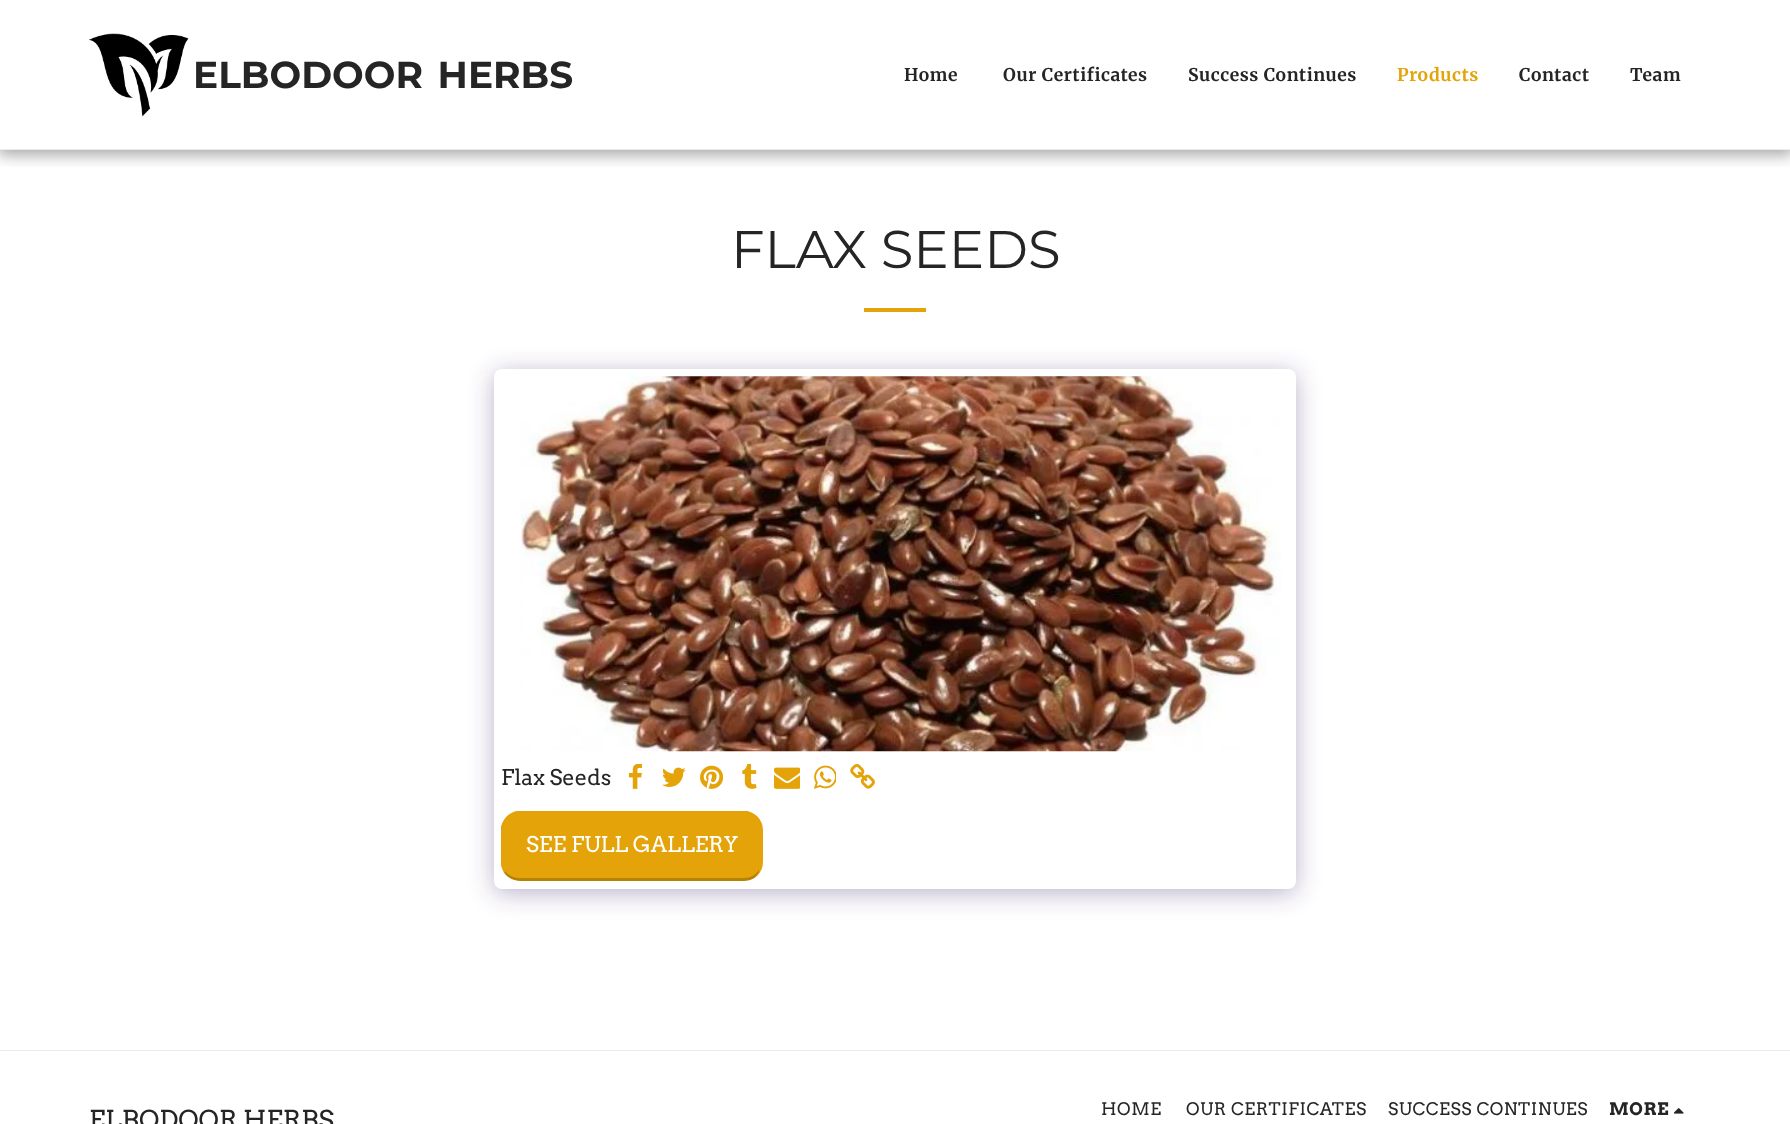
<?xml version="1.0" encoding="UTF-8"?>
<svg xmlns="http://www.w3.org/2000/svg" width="1790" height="1124">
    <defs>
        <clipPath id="clip1"><rect x="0" y="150" width="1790" height="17"/></clipPath>
        <filter id="blur1" x="-50%" y="-200%" width="200%" height="500%"><feGaussianBlur stdDeviation="7.5"/></filter>
        <filter id="blur2" x="-50%" y="-200%" width="200%" height="500%"><feGaussianBlur stdDeviation="12.5"/></filter>
    </defs>
    <rect width="100%" height="100%" fill="#FFFFFF"/>
    <g clip-path="url(#clip1)">
        <rect x="-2" y="0" width="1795" height="155" fill="#000000" fill-opacity="0.35" filter="url(#blur1)"/>
    </g>
    <rect x="0" y="149" width="1790" height="1" fill="#EBEBEB"/>
    <image x="88" y="33" width="101" height="84" href="img_01.png"/>
    <text x="193" y="88" word-spacing="4" font-family="Montserrat" font-size="37.5" font-weight="700" fill="#252525">ELBODOOR HERBS</text>
    <text x="904" y="81" font-family="Merriweather" font-size="17.5" font-weight="700" letter-spacing="0.6" fill="#252525">Home</text>
    <text x="1003" y="81" font-family="Merriweather" font-size="17.5" font-weight="700" letter-spacing="0.6" fill="#252525">Our Certificates</text>
    <text x="1188" y="81" font-family="Merriweather" font-size="17.5" font-weight="700" letter-spacing="0.6" fill="#252525">Success Continues</text>
    <text x="1397" y="81" font-family="Merriweather" font-size="17.5" font-weight="700" letter-spacing="0.6" fill="#E4A308">Products</text>
    <text x="1519" y="81" font-family="Merriweather" font-size="17.5" font-weight="700" letter-spacing="0.6" fill="#252525">Contact</text>
    <text x="1630" y="81" font-family="Merriweather" font-size="17.5" font-weight="700" letter-spacing="0.6" fill="#252525">Team</text>
    <text x="731" y="268" font-family="Montserrat" font-size="53" fill="#252525">FLAX SEEDS</text>
    <rect x="864" y="308" width="62" height="4" fill="#E4A308"/>
    <rect x="494" y="373" width="802" height="520" rx="8" fill="#4D3F7A" fill-opacity="0.4" filter="url(#blur2)"/>
    <rect x="494" y="369" width="802" height="520" rx="8" fill="#FFFFFF"/>
    <image x="520" y="376" width="761" height="376" href="img_02.png"/>
    <text x="501" y="785" font-family="Arvo" font-size="21.75" fill="#252525">Flax Seeds</text>
    <image x="628" y="764" width="14" height="25" href="img_03.png"/>
    <image x="662" y="767" width="24" height="20" href="img_04.png"/>
    <image x="700" y="765" width="23" height="24" href="img_05.png"/>
    <image x="742" y="764" width="15" height="25" href="img_06.png"/>
    <image x="774" y="767" width="26" height="22" href="img_07.png"/>
    <image x="814" y="765" width="22" height="24" href="img_08.png"/>
    <image x="850" y="764" width="25" height="25" href="img_09.png"/>
    <rect x="501" y="811" width="262" height="70" rx="19" fill="#E4A308"/>
    <path d="M 520 812 C 515 812 510 814 507 817 C 510 814 513 812 517 811 H 747 C 751 812 754 814 757 817 L 756 818 C 753 814 749 812 744 812 Z" fill="#E4A308"/>
    <path d="M 759 872 C 756 878 751 881 744 881 H 520 C 514 881 508 878 504 873 L 505 871 C 508 875 514 878 520 878 H 744 C 750 878 756 875 759 870 Z" fill="#000000" fill-opacity="0.2"/>
    <path d="M 501 827 C 502 823 504 820 507 817 C 500 825 502 836 502 846 C 502 853 500 864 505 871 L 504 873 C 503 870 502 868 501 865 Z" fill="#E4A308"/>
    <text x="526" y="852" font-family="Arvo" font-size="21.75" fill="#FFFFFF">SEE FULL GALLERY</text>
    <rect x="0" y="1050" width="1790" height="1" fill="#EBEBEB"/>
    <text x="89" y="1129" font-family="Arvo" font-size="26" fill="#252525">ELBODOOR HERBS</text>
    <text x="1101" y="1115" font-family="Arvo" font-size="17.25" letter-spacing="0.6" fill="#252525">HOME</text>
    <text x="1186" y="1115" font-family="Arvo" font-size="17.25" letter-spacing="0.6" fill="#252525">OUR CERTIFICATES</text>
    <text x="1388" y="1115" font-family="Arvo" font-size="17.25" letter-spacing="0.6" fill="#252525">SUCCESS CONTINUES</text>
    <text x="1609" y="1115" font-family="Arvo" font-size="17.25" font-weight="700" letter-spacing="0.6" fill="#252525">MORE</text>
    <image x="1674" y="1108" width="10" height="6" href="img_10.png"/>
</svg>
